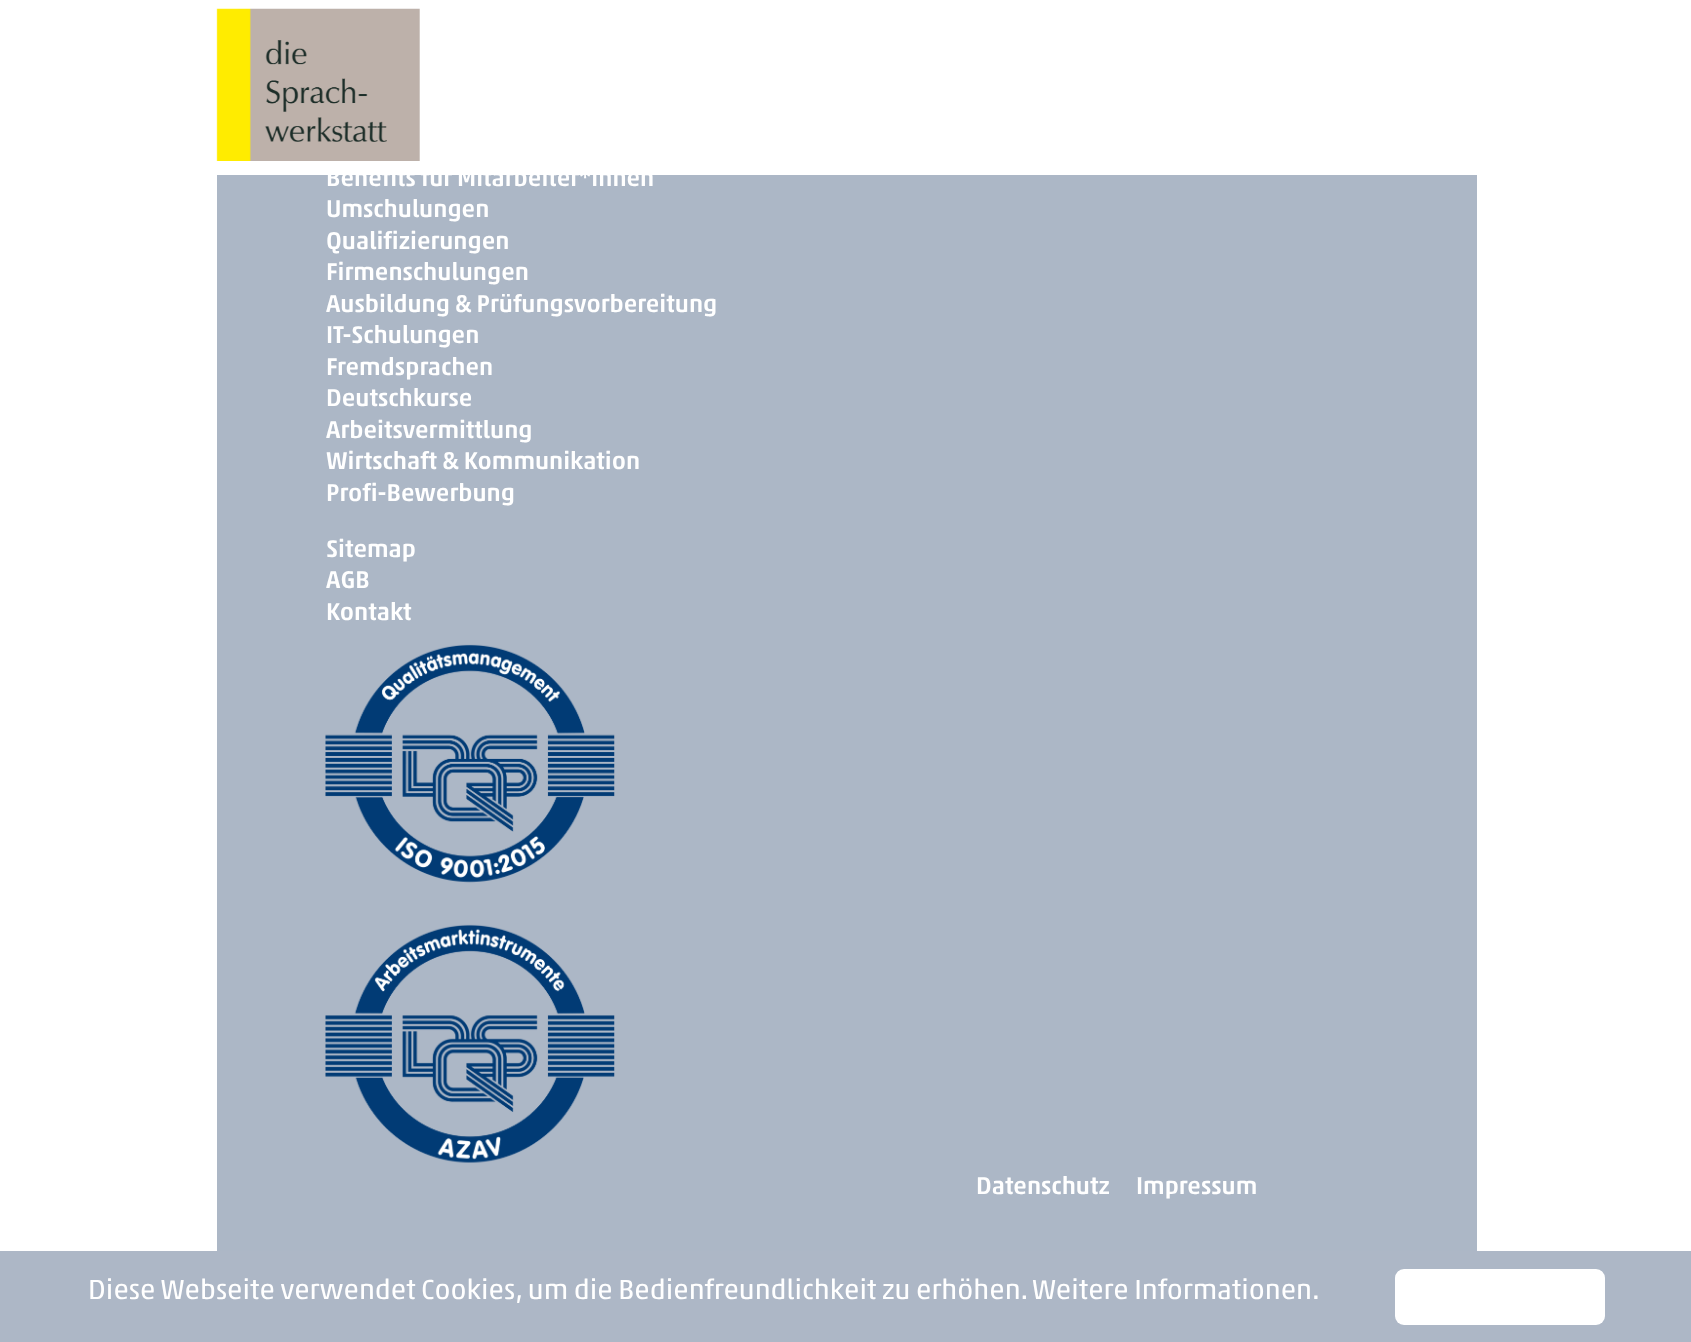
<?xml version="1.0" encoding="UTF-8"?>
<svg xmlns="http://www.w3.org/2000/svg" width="1691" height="1342">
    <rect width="100%" height="100%" fill="#FFFFFF"/>
    <image x="216" y="8" width="204" height="153" href="img_01.png"/>
    <rect x="217" y="175" width="1260" height="1076" fill="#ACB7C6"/>
    <text font-family="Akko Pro" font-size="24.5" font-weight="500" fill="#FFFFFF">
        <tspan x="326" y="186">Benefits für Mitarbeiter*innen</tspan>
        <tspan x="326" y="217">Umschulungen</tspan>
        <tspan x="326" y="249">Qualifizierungen</tspan>
        <tspan x="326" y="280">Firmenschulungen</tspan>
        <tspan x="326" y="312">Ausbildung &amp; Prüfungsvorbereitung</tspan>
        <tspan x="326" y="343">IT-Schulungen</tspan>
        <tspan x="326" y="375">Fremdsprachen</tspan>
        <tspan x="326" y="406">Deutschkurse</tspan>
        <tspan x="326" y="438">Arbeitsvermittlung</tspan>
        <tspan x="326" y="469">Wirtschaft &amp; Kommunikation</tspan>
        <tspan x="326" y="501">Profi-Bewerbung</tspan>
    </text>
    <text font-family="Akko Pro" font-size="24.5" font-weight="500" fill="#FFFFFF">
        <tspan x="326" y="557">Sitemap</tspan>
        <tspan x="326" y="588">AGB</tspan>
        <tspan x="326" y="620">Kontakt</tspan>
    </text>
    <image x="325" y="644" width="290" height="239" href="img_02.png"/>
    <image x="325" y="924" width="290" height="239" href="img_03.png"/>
    <text x="976" y="1194" font-family="Akko Pro" font-size="24.5" font-weight="500" fill="#FFFFFF">Datenschutz</text>
    <text x="1136" y="1194" font-family="Akko Pro" font-size="24.5" font-weight="500" fill="#FFFFFF">Impressum</text>
    <rect x="0" y="1251" width="1691" height="91" fill="#ADB7C6"/>
    <text x="88" y="1299" font-family="Akko Pro" font-size="28" fill="#FFFFFF">Diese Webseite verwendet Cookies, um die Bedienfreundlichkeit zu erhöhen.</text>
    <text x="1032" y="1299" font-family="Akko Pro" font-size="28" fill="#FFFFFF">Weitere Informationen.</text>
    <rect x="1395" y="1269" width="210" height="56" rx="9" fill="#FFFFFF"/>
</svg>
